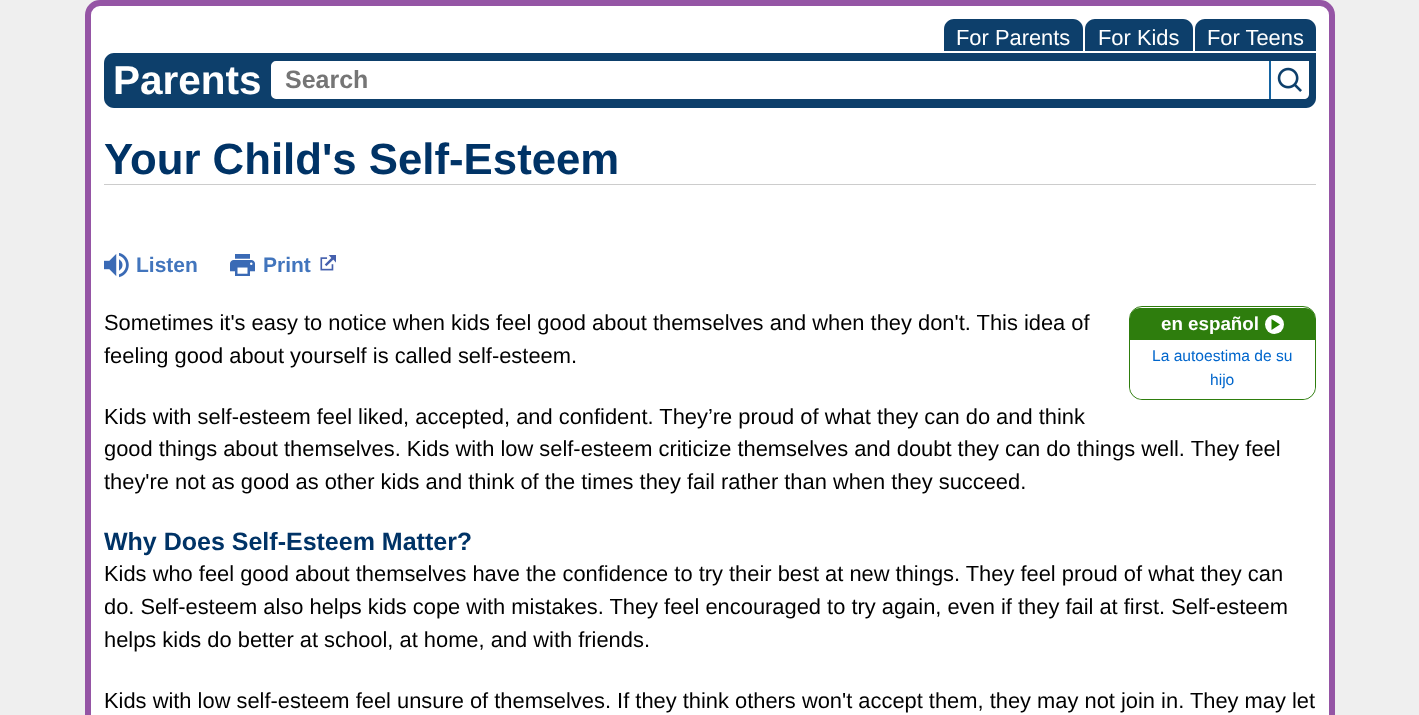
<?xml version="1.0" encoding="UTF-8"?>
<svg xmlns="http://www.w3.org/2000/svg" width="1419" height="715">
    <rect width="100%" height="100%" fill="#EFEFEF"/>
    <rect x="88" y="3" width="1244" height="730" rx="12" fill="#FFFFFF" stroke="#9555A5" stroke-width="6"/>
    <path d="M 954 19 H 1073 C 1078.5 19 1083 23.5 1083 29 V 51 H 944 V 29 C 944 23.5 948.5 19 954 19 Z" fill="#0D3F6B"/>
    <text x="956" y="45" font-family="Liberation Sans" font-size="21.88" fill="#FFFFFF">For Parents</text>
    <path d="M 1095 19 H 1183 C 1188.5 19 1193 23.5 1193 29 V 51 H 1085 V 29 C 1085 23.5 1089.5 19 1095 19 Z" fill="#0D3F6B"/>
    <text x="1098" y="45" font-family="Liberation Sans" font-size="21.88" fill="#FFFFFF">For Kids</text>
    <path d="M 1205 19 H 1306 C 1311.5 19 1316 23.5 1316 29 V 51 H 1195 V 29 C 1195 23.5 1199.5 19 1205 19 Z" fill="#0D3F6B"/>
    <text x="1207" y="45" font-family="Liberation Sans" font-size="21.88" fill="#FFFFFF">For Teens</text>
    <path d="M 114 53 H 1316 V 98 C 1316 103.5 1311.5 108 1306 108 H 114 C 108.5 108 104 103.5 104 98 V 63 C 104 57.5 108.5 53 114 53 Z" fill="#0D3F6B"/>
    <text x="113" y="94" font-family="Liberation Sans" font-size="40.5" font-weight="700" fill="#FFFFFF">Parents</text>
    <path d="M 276 65 H 1265 V 95 H 276 C 275.5 95 275 94.5 275 94 V 66 C 275 65.5 275.5 65 276 65 Z" fill="#FFFFFF" stroke="#FFFFFF" stroke-width="8"/>
    <text x="285" y="88" font-family="Liberation Sans" font-size="25" font-weight="700" fill="#757575">Search</text>
    <rect x="1269" y="61" width="2" height="38" fill="#1564A2"/>
    <path d="M 1271 61 H 1309 V 94 C 1309 97 1307 99 1304 99 H 1271 Z" fill="#FFFFFF"/>
    <image x="1277" y="67" width="25" height="25" href="img_01.png"/>
    <rect x="104" y="184" width="1212" height="1" fill="#CCCCCC"/>
    <text x="104" y="174" font-family="Liberation Sans" font-size="43.75" font-weight="700" fill="#003366">Your Child's Self-Esteem</text>
    <image x="104" y="253" width="25" height="25" href="img_02.png"/>
    <text x="136" y="272" font-family="Liberation Sans" font-size="21" font-weight="700" fill="#4275BD">Listen</text>
    <image x="230" y="254" width="25" height="22" href="img_03.png"/>
    <text x="263" y="272" font-family="Liberation Sans" font-size="21" font-weight="700" fill="#4275BD">Print</text>
    <image x="320" y="255" width="16" height="16" href="img_04.png"/>
    <text font-family="Liberation Sans" font-size="21.88" fill="#000000">
        <tspan x="104" y="330">Sometimes it's easy to notice when kids feel good about themselves and when they don't. This idea of</tspan>
        <tspan x="104" y="363">feeling good about yourself is called self-esteem.</tspan>
    </text>
    <text font-family="Liberation Sans" font-size="21.88" fill="#000000">
        <tspan x="104" y="424">Kids with self-esteem feel liked, accepted, and confident. They’re proud of what they can do and think</tspan>
        <tspan x="104" y="456">good things about themselves. Kids with low self-esteem criticize themselves and doubt they can do things well. They feel</tspan>
        <tspan x="104" y="489">they're not as good as other kids and think of the times they fail rather than when they succeed.</tspan>
    </text>
    <text x="104" y="550" font-family="Liberation Sans" font-size="25" font-weight="700" fill="#003366">Why Does Self-Esteem Matter?</text>
    <text font-family="Liberation Sans" font-size="21.88" fill="#000000">
        <tspan x="104" y="581">Kids who feel good about themselves have the confidence to try their best at new things. They feel proud of what they can</tspan>
        <tspan x="104" y="614">do. Self-esteem also helps kids cope with mistakes. They feel encouraged to try again, even if they fail at first. Self-esteem</tspan>
        <tspan x="104" y="647">helps kids do better at school, at home, and with friends.</tspan>
    </text>
    <text x="104" y="708" font-family="Liberation Sans" font-size="21.88" fill="#000000">Kids with low self-esteem feel unsure of themselves. If they think others won't accept them, they may not join in. They may let</text>
    <rect x="1129.5" y="306.5" width="186" height="93" rx="12.5" fill="none" stroke="#2E7D0D"/>
    <path d="M 1140 308 H 1305 C 1310.5 308 1315 312.5 1315 318 V 340 H 1130 V 318 C 1130 312.5 1134.5 308 1140 308 Z" fill="#2E7D0D"/>
    <text x="1161" y="330" font-family="Liberation Sans" font-size="18.75" font-weight="700" fill="#FFFFFF">en español</text>
    <circle cx="1274.5" cy="324.5" r="9.5" fill="#FFFFFF"/>
    <path d="M 1271.5 319 V 330 L 1280 324.5 Z" fill="#258300" fill-rule="evenodd"/>
    <path d="M 1130 340 H 1315 V 386 C 1315 393 1309 399 1302 399 H 1143 C 1136 399 1130 393 1130 386 Z" fill="#FFFFFF"/>
    <text x="1152" y="361" font-family="Liberation Sans" font-size="15.6" fill="#0066CC">La autoestima de su</text>
    <text x="1210" y="385" font-family="Liberation Sans" font-size="15.6" fill="#0066CC">hijo</text>
</svg>
